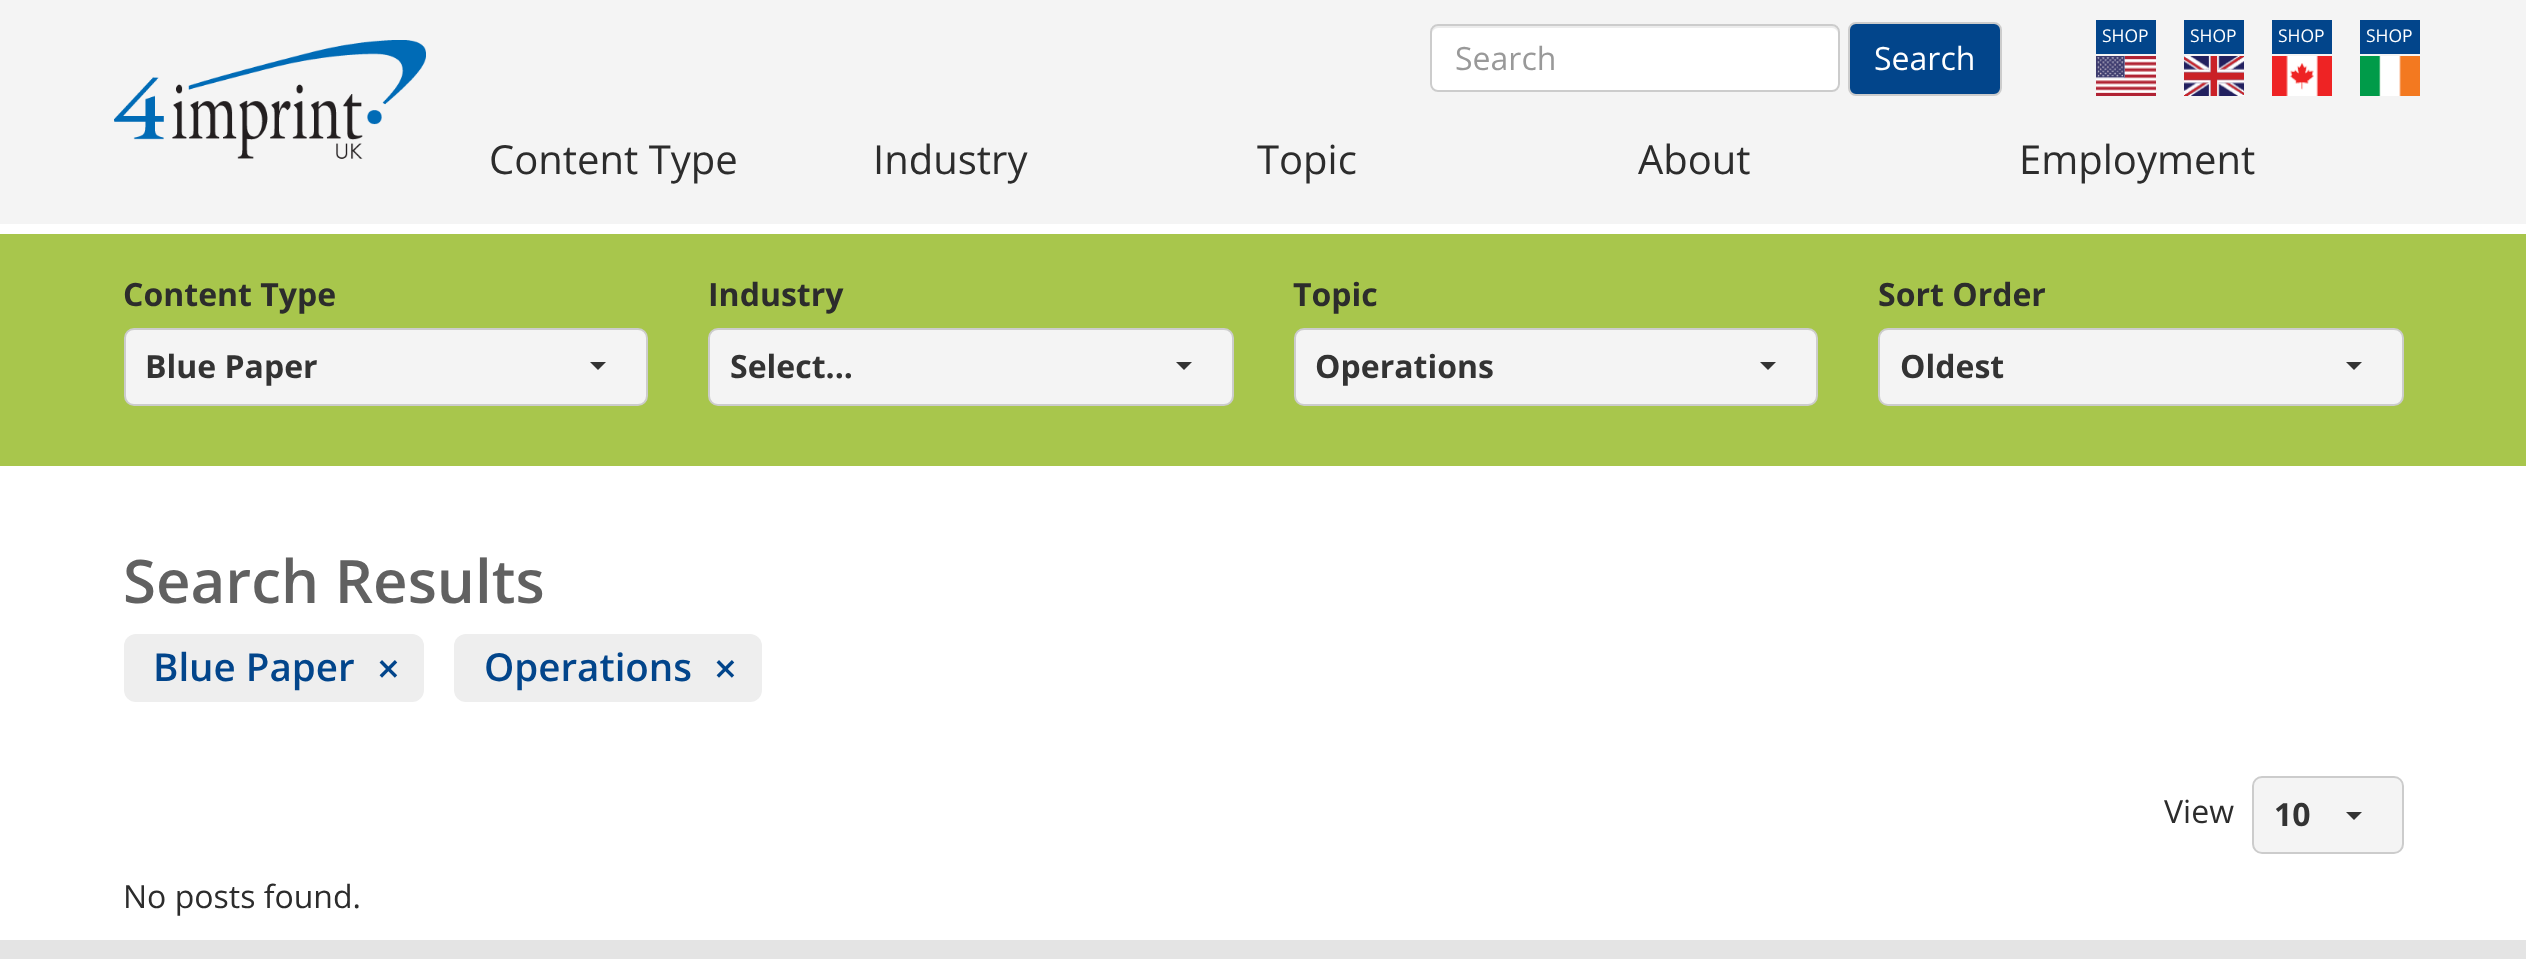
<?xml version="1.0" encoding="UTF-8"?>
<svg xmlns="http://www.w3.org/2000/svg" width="2526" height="959">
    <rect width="100%" height="100%" fill="#FFFFFF"/>
    <rect x="0" y="0" width="2526" height="224" fill="#F4F4F4"/>
    <image x="114" y="40" width="312" height="119" href="img_01.png"/>
    <rect x="2096" y="20" width="60" height="34" fill="#02458B"/>
    <text x="2102" y="42" font-family="Open Sans" font-size="17.5" fill="#FFFFFF">SHOP</text>
    <image x="2096" y="56" width="60" height="40" href="img_02.png"/>
    <rect x="2184" y="20" width="60" height="34" fill="#02458B"/>
    <text x="2190" y="42" font-family="Open Sans" font-size="17.5" fill="#FFFFFF">SHOP</text>
    <image x="2184" y="56" width="60" height="40" href="img_03.png"/>
    <rect x="2272" y="20" width="60" height="34" fill="#02458B"/>
    <text x="2278" y="42" font-family="Open Sans" font-size="17.5" fill="#FFFFFF">SHOP</text>
    <image x="2272" y="56" width="60" height="40" href="img_04.png"/>
    <rect x="2360" y="20" width="60" height="34" fill="#02458B"/>
    <text x="2366" y="42" font-family="Open Sans" font-size="17.5" fill="#FFFFFF">SHOP</text>
    <image x="2360" y="56" width="60" height="40" href="img_05.png"/>
    <rect x="1430" y="24" width="410" height="68" rx="8" fill="#FFFFFF"/>
    <path d="M 1438 28 H 1832 C 1835 28 1838 31 1838 34 C 1838 30 1837 26 1832 26 H 1438 C 1433 26 1432 30 1432 34 C 1432 31 1435 28 1438 28 Z" fill="#ECECEC"/>
    <rect x="1431" y="25" width="408" height="66" rx="7" fill="none" stroke="#CCCCCC" stroke-width="2"/>
    <text x="1455" y="70" font-family="Open Sans" font-size="32" fill="#999999">Search</text>
    <rect x="1849" y="23" width="152" height="72" rx="7" fill="#02458B" stroke="#CCCCCC" stroke-width="2"/>
    <text x="1874" y="70" font-family="Open Sans" font-size="32" fill="#FFFFFF">Search</text>
    <text x="489" y="174" font-family="Open Sans" font-size="40" fill="#2C2C2C">Content Type</text>
    <text x="873" y="174" font-family="Open Sans" font-size="40" fill="#2C2C2C">Industry</text>
    <text x="1257" y="174" font-family="Open Sans" font-size="40" fill="#2C2C2C">Topic</text>
    <text x="1638" y="174" font-family="Open Sans" font-size="40" fill="#2C2C2C">About</text>
    <text x="2019" y="174" font-family="Open Sans" font-size="40" fill="#2C2C2C">Employment</text>
    <rect x="0" y="234" width="2526" height="232" fill="#A8C64C"/>
    <text x="123" y="306" font-family="Open Sans" font-size="32" font-weight="700" fill="#2C2C2C">Content Type</text>
    <rect x="125" y="329" width="522" height="76" rx="9" fill="#F4F4F4" stroke="#CCCCCC" stroke-width="2"/>
    <text x="145" y="378" font-family="Open Sans" font-size="32" font-weight="700" fill="#333333">Blue Paper</text>
    <path d="M 590 362 H 606 L 598 370 Z" fill="#333333"/>
    <text x="708" y="306" font-family="Open Sans" font-size="32" font-weight="700" fill="#2C2C2C">Industry</text>
    <rect x="709" y="329" width="524" height="76" rx="9" fill="#F4F4F4" stroke="#CCCCCC" stroke-width="2"/>
    <text x="730" y="378" font-family="Open Sans" font-size="32" font-weight="700" fill="#333333">Select...</text>
    <path d="M 1176 362 H 1192 L 1184 370 Z" fill="#333333"/>
    <text x="1293" y="306" font-family="Open Sans" font-size="32" font-weight="700" fill="#2C2C2C">Topic</text>
    <rect x="1295" y="329" width="522" height="76" rx="9" fill="#F4F4F4" stroke="#CCCCCC" stroke-width="2"/>
    <text x="1315" y="378" font-family="Open Sans" font-size="32" font-weight="700" fill="#333333">Operations</text>
    <path d="M 1760 362 H 1776 L 1768 370 Z" fill="#333333"/>
    <text x="1878" y="306" font-family="Open Sans" font-size="32" font-weight="700" fill="#2C2C2C">Sort Order</text>
    <rect x="1879" y="329" width="524" height="76" rx="9" fill="#F4F4F4" stroke="#CCCCCC" stroke-width="2"/>
    <text x="1900" y="378" font-family="Open Sans" font-size="32" font-weight="700" fill="#333333">Oldest</text>
    <path d="M 2346 362 H 2362 L 2354 370 Z" fill="#333333"/>
    <text x="123" y="603" font-family="Open Sans" font-size="60" font-weight="600" fill="#616161">Search Results</text>
    <rect x="124" y="634" width="300" height="68" rx="12" fill="#EEEEEE"/>
    <text x="153" y="681" font-family="Open Sans" font-size="38.5" font-weight="600" fill="#02458B">Blue Paper</text>
    <text x="377" y="683" font-family="Open Sans" font-size="40" font-weight="600" fill="#02458B">×</text>
    <rect x="454" y="634" width="308" height="68" rx="12" fill="#EEEEEE"/>
    <text x="484" y="681" font-family="Open Sans" font-size="38.5" font-weight="600" fill="#02458B">Operations</text>
    <text x="714" y="683" font-family="Open Sans" font-size="40" font-weight="600" fill="#02458B">×</text>
    <text x="2164" y="823" font-family="Open Sans" font-size="32" fill="#2C2C2C">View</text>
    <rect x="2253" y="777" width="150" height="76" rx="9" fill="#F4F4F4" stroke="#CCCCCC" stroke-width="2"/>
    <text x="2274" y="826" font-family="Open Sans" font-size="32" font-weight="700" fill="#333333">10</text>
    <path d="M 2346 812 H 2362 L 2354 820 Z" fill="#333333"/>
    <text x="123" y="908" font-family="Open Sans" font-size="32" fill="#2C2C2C">No posts found.</text>
    <rect x="0" y="940" width="2526" height="19" fill="#E4E4E4"/>
</svg>
